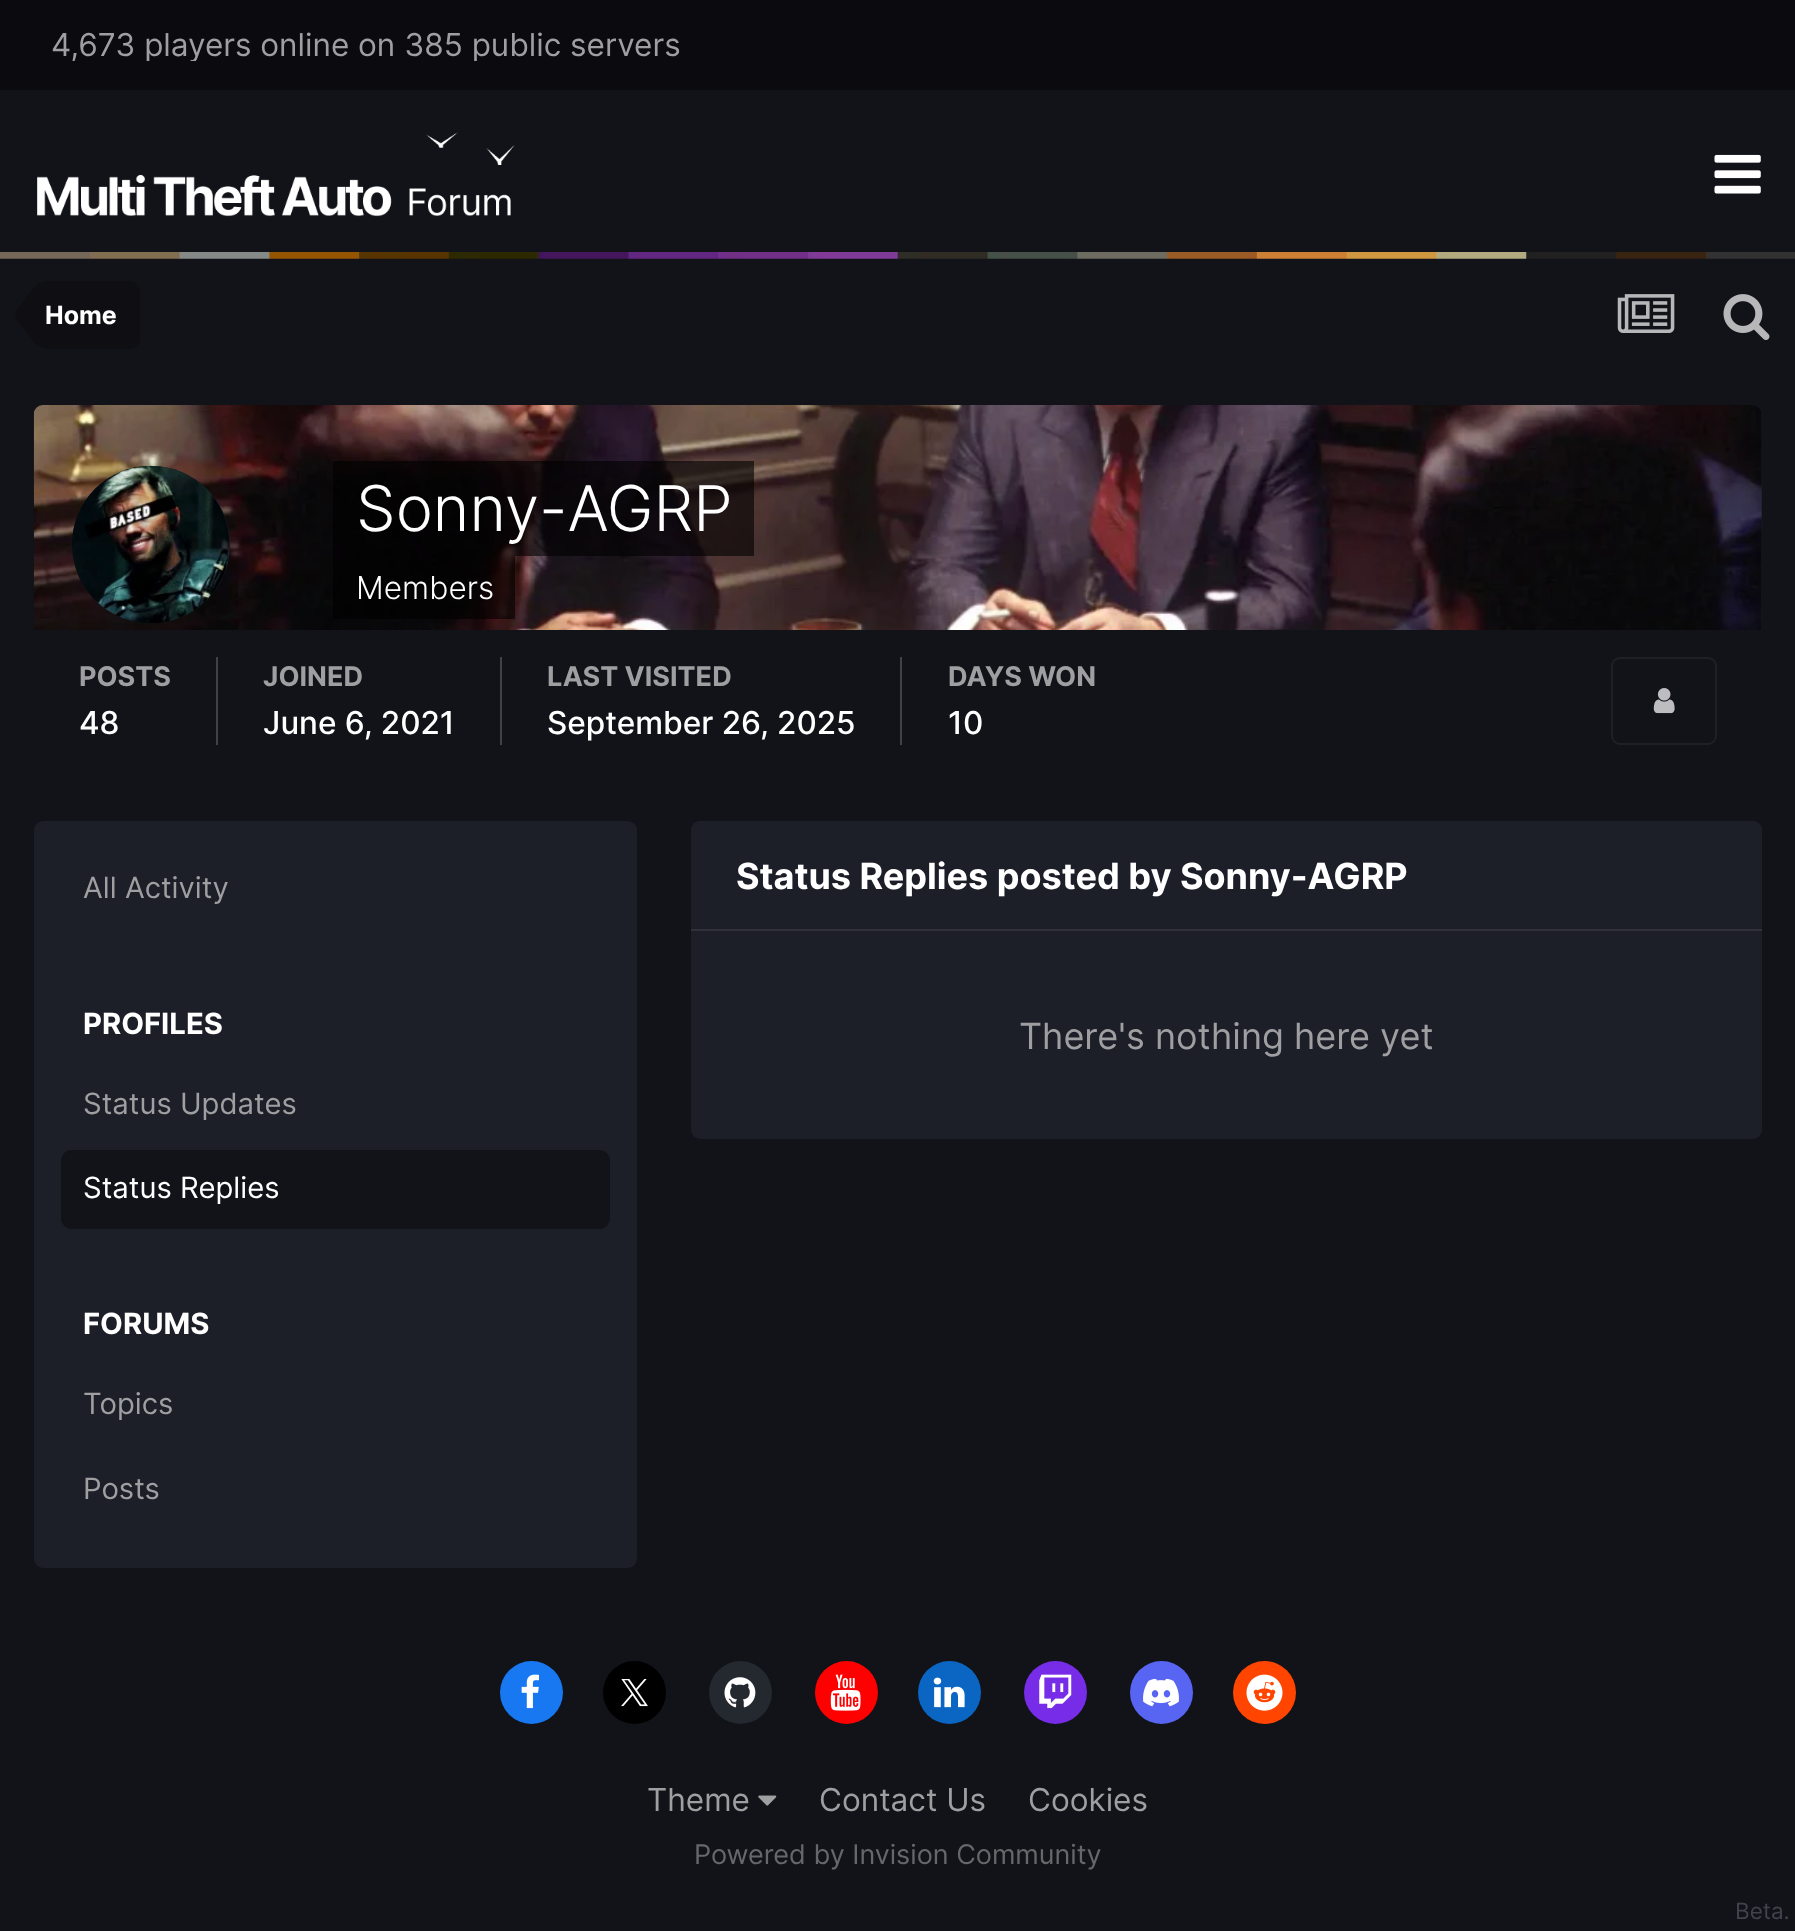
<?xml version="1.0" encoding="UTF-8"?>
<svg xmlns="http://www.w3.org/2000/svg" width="1795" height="1931">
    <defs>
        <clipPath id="clip1"><rect x="16" y="29" width="1766" height="32"/></clipPath>
    </defs>
    <rect width="100%" height="100%" fill="#121319"/>
    <image x="0" y="252" width="1795" height="7" href="img_01.png"/>
    <rect x="0" y="0" width="1795" height="90" fill="#0B0B0F"/>
    <g clip-path="url(#clip1)">
        <text x="51" y="56" font-family="Inter" font-size="31.5" fill="#9F9FA2">4,673 players online on 385 public servers</text>
    </g>
    <image x="37" y="132" width="478" height="85" href="img_02.png"/>
    <image x="1714" y="154" width="47" height="40" href="img_03.png"/>
    <path d="M 45 281 H 129 C 135 281 140 286 140 292 V 338 C 140 344 135 349 129 349 H 45 Z" fill="#0E0E13"/>
    <path d="M 45 315 V 348 C 40 348 35.5 345.5 32 340 L 21.5 326.5 L 16 318.5 C 15.5 317 15.5 316 15.5 315 Z" fill="#0E0E13"/>
    <path d="M 45 315 H 15.5 C 15.5 314 15.5 313 16 311.5 L 21.5 303.5 L 32 290 C 35.5 284.5 40 282 45 282 Z" fill="#0E0E13"/>
    <text x="45" y="324" font-family="Inter" font-size="25" font-weight="700" fill="#FFFFFF">Home</text>
    <image x="1617" y="294" width="58" height="39" href="img_04.png"/>
    <image x="1723" y="294" width="47" height="46" href="img_05.png"/>
    <path d="M 43 405 H 1753 C 1758 405 1762 409 1762 414 V 630 H 34 V 414 C 34 409 38 405 43 405 Z" fill="#1C1E28"/>
    <image x="33" y="405" width="1729" height="225" href="img_06.png"/>
    <rect x="72" y="466" width="158" height="157" rx="78.5" fill="#1C1E28"/>
    <image x="72" y="465" width="158" height="158" href="img_07.png"/>
    <rect x="333" y="461" width="421" height="95" fill="#000000" fill-opacity="0.6"/>
    <text x="356" y="531" font-family="Inter" font-size="63" font-weight="300" fill="#FFFFFF">Sonny-AGRP</text>
    <rect x="333" y="556" width="182" height="63" fill="#000000" fill-opacity="0.6"/>
    <text x="356" y="599" font-family="Inter" font-size="31.5" font-weight="300" fill="#FFFFFF">Members</text>
    <rect x="216" y="657" width="2" height="88" fill="#414247"/>
    <text x="79" y="686" font-family="Inter" font-size="27" font-weight="700" fill="#9F9FA2">POSTS</text>
    <text x="79" y="734" font-family="Inter" font-size="31.5" font-weight="500" fill="#FFFFFF">48</text>
    <rect x="500" y="657" width="2" height="88" fill="#414247"/>
    <text x="263" y="686" font-family="Inter" font-size="27" font-weight="700" fill="#9F9FA2">JOINED</text>
    <text x="263" y="734" font-family="Inter" font-size="31.5" font-weight="500" fill="#FFFFFF">June 6, 2021</text>
    <rect x="900" y="657" width="2" height="88" fill="#414247"/>
    <text x="547" y="686" font-family="Inter" font-size="27" font-weight="700" fill="#9F9FA2">LAST VISITED</text>
    <text x="547" y="734" font-family="Inter" font-size="31.5" font-weight="500" fill="#FFFFFF">September 26, 2025</text>
    <text x="948" y="686" font-family="Inter" font-size="27" font-weight="700" fill="#9F9FA2">DAYS WON</text>
    <text x="948" y="734" font-family="Inter" font-size="31.5" font-weight="500" fill="#FFFFFF">10</text>
    <rect x="1612" y="658" width="104" height="86" rx="8" fill="none" stroke="#1F2026" stroke-width="2"/>
    <image x="1653" y="688" width="22" height="26" href="img_08.png"/>
    <rect x="34" y="821" width="603" height="747" rx="9" fill="#1C1E28"/>
    <text x="83" y="898" font-family="Inter" font-size="29.25" fill="#9F9FA2">All Activity</text>
    <text x="83" y="1034" font-family="Inter" font-size="29.25" font-weight="700" fill="#FFFFFF">PROFILES</text>
    <text x="83" y="1114" font-family="Inter" font-size="29.25" fill="#9F9FA2">Status Updates</text>
    <rect x="61" y="1150" width="549" height="79" rx="11" fill="#121319"/>
    <text x="83" y="1198" font-family="Inter" font-size="29.25" fill="#FFFFFF">Status Replies</text>
    <text x="83" y="1334" font-family="Inter" font-size="29.25" font-weight="700" fill="#FFFFFF">FORUMS</text>
    <text x="83" y="1414" font-family="Inter" font-size="29.25" fill="#9F9FA2">Topics</text>
    <text x="83" y="1499" font-family="Inter" font-size="29.25" fill="#9F9FA2">Posts</text>
    <rect x="691" y="821" width="1071" height="318" rx="9" fill="#1C1E28"/>
    <path d="M 700 821 H 1753 C 1758 821 1762 825 1762 830 V 932 H 691 V 830 C 691 825 695 821 700 821 Z" fill="#1C1E28"/>
    <rect x="691" y="929" width="1071" height="2" fill="#30313A"/>
    <text x="736" y="889" font-family="Inter" font-size="36" font-weight="700" fill="#FFFFFF">Status Replies posted by Sonny-AGRP</text>
    <text x="1019" y="1049" font-family="Inter" font-size="36" fill="#9F9FA2">There's nothing here yet</text>
    <circle cx="531.5" cy="1692.5" r="31.5" fill="#1778F2"/>
    <image x="521" y="1674" width="18" height="35" href="img_09.png"/>
    <circle cx="634.5" cy="1692.5" r="31.5" fill="#000000"/>
    <image x="621" y="1679" width="27" height="28" href="img_10.png"/>
    <circle cx="740.5" cy="1692.5" r="31.5" fill="#24292F"/>
    <image x="724" y="1677" width="32" height="31" href="img_11.png"/>
    <circle cx="846.5" cy="1692.5" r="31.5" fill="#FF0000"/>
    <image x="830" y="1674" width="31" height="37" href="img_12.png"/>
    <circle cx="949.5" cy="1692.5" r="31.5" fill="#0A66C2"/>
    <image x="933" y="1677" width="32" height="31" href="img_13.png"/>
    <circle cx="1055.5" cy="1692.5" r="31.5" fill="#772CE8"/>
    <image x="1039" y="1674" width="33" height="35" href="img_14.png"/>
    <circle cx="1161.5" cy="1692.5" r="31.5" fill="#5865F2"/>
    <image x="1143" y="1679" width="36" height="28" href="img_15.png"/>
    <circle cx="1264.5" cy="1692.5" r="31.5" fill="#FF4500"/>
    <image x="1246" y="1674" width="37" height="37" href="img_16.png"/>
    <text x="647" y="1811" font-family="Inter" font-size="31.5" fill="#9F9FA2">Theme</text>
    <image x="758" y="1795" width="19" height="11" href="img_17.png"/>
    <text x="819" y="1811" font-family="Inter" font-size="31.5" fill="#9F9FA2">Contact Us</text>
    <text x="1028" y="1811" font-family="Inter" font-size="31.5" fill="#9F9FA2">Cookies</text>
    <text x="694" y="1864" font-family="Inter" font-size="27" fill="#67676B">Powered by Invision Community</text>
    <text x="1735" y="1919" font-family="Inter" font-size="22.5" fill="#41424C">Beta.</text>
</svg>
